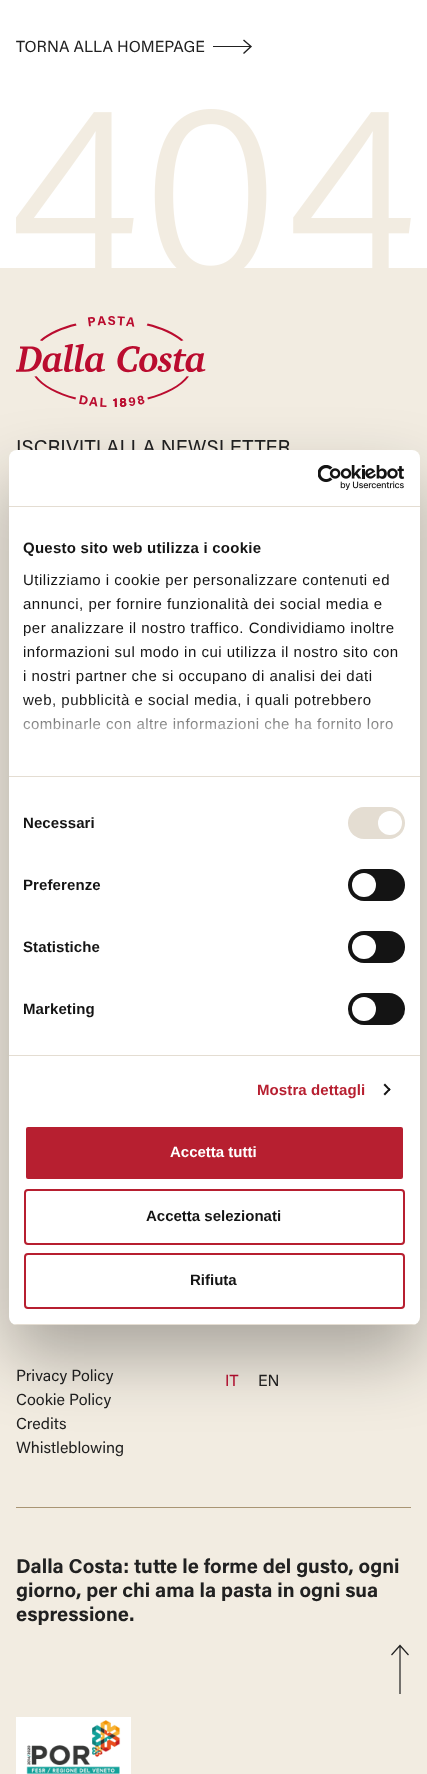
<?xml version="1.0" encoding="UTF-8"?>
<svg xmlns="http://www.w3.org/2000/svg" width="427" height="1774">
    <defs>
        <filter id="blur1" x="-50%" y="-200%" width="200%" height="500%"><feGaussianBlur stdDeviation="34"/></filter>
        <linearGradient id="g1" gradientUnits="userSpaceOnUse" x1="208" y1="776" x2="208" y2="701"><stop offset="0" stop-color="#FFFFFF"/><stop offset="0.5" stop-color="#FFFFFF" stop-opacity="0.8"/><stop offset="1" stop-color="#FFFFFF" stop-opacity="0"/></linearGradient>
        <clipPath id="clip1"><rect x="9" y="450" width="411" height="875" rx="8"/></clipPath>
    </defs>
    <rect width="100%" height="100%" fill="#FFFFFF"/>
    <text x="16" y="52" font-family="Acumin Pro" font-size="16" fill="#212121">TORNA ALLA HOMEPAGE</text>
    <rect x="213" y="46" width="38" height="1" fill="#212121"/>
    <path d="M 243.5 40 L 251 46.5 L 243.5 53.5" fill="none" stroke="#212121" stroke-width="1.4"/>
    <image x="16" y="109" width="395" height="159" href="img_01.png"/>
    <rect x="0" y="268" width="427" height="1506" fill="#F2ECE1"/>
    <image x="16" y="316" width="190" height="91" href="img_02.png"/>
    <text x="16" y="454" font-family="Acumin Pro" font-size="20" fill="#212121">ISCRIVITI ALLA NEWSLETTER</text>
    <rect x="16" y="1507" width="395" height="1" fill="#A99574"/>
    <text font-family="Acumin Pro" font-size="16" fill="#212121">
        <tspan x="16" y="1381">Privacy Policy</tspan>
        <tspan x="16" y="1405">Cookie Policy</tspan>
        <tspan x="16" y="1429">Credits</tspan>
        <tspan x="16" y="1453">Whistleblowing</tspan>
    </text>
    <text x="225" y="1386" font-family="Acumin Pro" font-size="16" fill="#BA0C2F">IT</text>
    <text x="258" y="1386" font-family="Acumin Pro" font-size="16" fill="#212121">EN</text>
    <text font-family="Acumin Pro" font-size="20" font-weight="700" fill="#212121">
        <tspan x="16" y="1573">Dalla Costa: tutte le forme del gusto, ogni</tspan>
        <tspan x="16" y="1597">giorno, per chi ama la pasta in ogni sua</tspan>
        <tspan x="16" y="1621">espressione.</tspan>
    </text>
    <path d="M 400 1645.5 V 1694 M 408.5 1655 L 400 1645.5 L 391.5 1655" fill="none" stroke="#212121" stroke-width="1.2"/>
    <image x="16" y="1717" width="115" height="57" href="img_03.png"/>
    <rect x="9" y="482" width="411" height="875" rx="8" fill="#000000" fill-opacity="0.3" filter="url(#blur1)"/>
    <rect x="9" y="450" width="411" height="875" rx="8" fill="#FFFFFF"/>
    <rect x="9" y="506" width="411" height="1" fill="#E4DDD2"/>
    <image x="318" y="465" width="87" height="25" href="img_04.png"/>
    <rect x="9" y="776" width="411" height="1" fill="#E4DDD2"/>
    <text x="23" y="553" font-family="Liberation Sans" font-size="15" font-weight="700" letter-spacing="0.25" fill="#141414">Questo sito web utilizza i cookie</text>
    <text font-family="Liberation Sans" font-size="15" letter-spacing="0.5" fill="#141414">
        <tspan x="23" y="585">Utilizziamo i cookie per personalizzare contenuti ed</tspan>
        <tspan x="23" y="609">annunci, per fornire funzionalità dei social media e</tspan>
        <tspan x="23" y="633">per analizzare il nostro traffico. Condividiamo inoltre</tspan>
        <tspan x="23" y="657">informazioni sul modo in cui utilizza il nostro sito con</tspan>
        <tspan x="23" y="681">i nostri partner che si occupano di analisi dei dati</tspan>
        <tspan x="23" y="705">web, pubblicità e social media, i quali potrebbero</tspan>
        <tspan x="23" y="729">combinarle con altre informazioni che ha fornito loro</tspan>
    </text>
    <rect x="23" y="702" width="370" height="28" fill="url(#g1)"/>
    <rect x="9" y="1055" width="411" height="1" fill="#E4DDD2"/>
    <text x="23" y="828" font-family="Liberation Sans" font-size="15" font-weight="700" letter-spacing="0.1" fill="#141414">Necessari</text>
    <rect x="348" y="807" width="57" height="32" rx="16" fill="#E4DDD2"/>
    <circle cx="390" cy="823" r="12" fill="#FFFFFF"/>
    <text x="23" y="890" font-family="Liberation Sans" font-size="15" font-weight="700" letter-spacing="0.1" fill="#141414">Preferenze</text>
    <rect x="348" y="869" width="57" height="32" rx="16" fill="#141414"/>
    <circle cx="364" cy="885" r="12" fill="#FFFFFF"/>
    <text x="23" y="952" font-family="Liberation Sans" font-size="15" font-weight="700" letter-spacing="0.1" fill="#141414">Statistiche</text>
    <rect x="348" y="931" width="57" height="32" rx="16" fill="#141414"/>
    <circle cx="364" cy="947" r="12" fill="#FFFFFF"/>
    <text x="23" y="1014" font-family="Liberation Sans" font-size="15" font-weight="700" letter-spacing="0.1" fill="#141414">Marketing</text>
    <rect x="348" y="993" width="57" height="32" rx="16" fill="#141414"/>
    <circle cx="364" cy="1009" r="12" fill="#FFFFFF"/>
    <text x="257" y="1095" font-family="Liberation Sans" font-size="15" font-weight="700" letter-spacing="0.1" fill="#B71F30">Mostra dettagli</text>
    <path d="M 385 1083.5 L 390.5 1089.5 L 389.5 1091 L 383.5 1085 Z" fill="#141414"/>
    <path d="M 389.5 1088 L 390.5 1089.5 L 385 1095.5 L 383.5 1094 Z" fill="#141414"/>
    <g clip-path="url(#clip1)">
        <rect x="9" y="1324" width="411" height="1" fill="#E4DDD2"/>
    </g>
    <rect x="25" y="1126" width="379" height="54" rx="3" fill="#B71F30" stroke="#FFFFFF" stroke-width="2"/>
    <text x="170" y="1157" font-family="Liberation Sans" font-size="15" font-weight="700" fill="#FFFFFF">Accetta tutti</text>
    <rect x="25" y="1190" width="379" height="54" rx="3" fill="none" stroke="#B71F30" stroke-width="2"/>
    <text x="146" y="1221" font-family="Liberation Sans" font-size="15" font-weight="700" fill="#141414">Accetta selezionati</text>
    <rect x="25" y="1254" width="379" height="54" rx="3" fill="none" stroke="#B71F30" stroke-width="2"/>
    <text x="190" y="1285" font-family="Liberation Sans" font-size="15" font-weight="700" fill="#141414">Rifiuta</text>
</svg>
